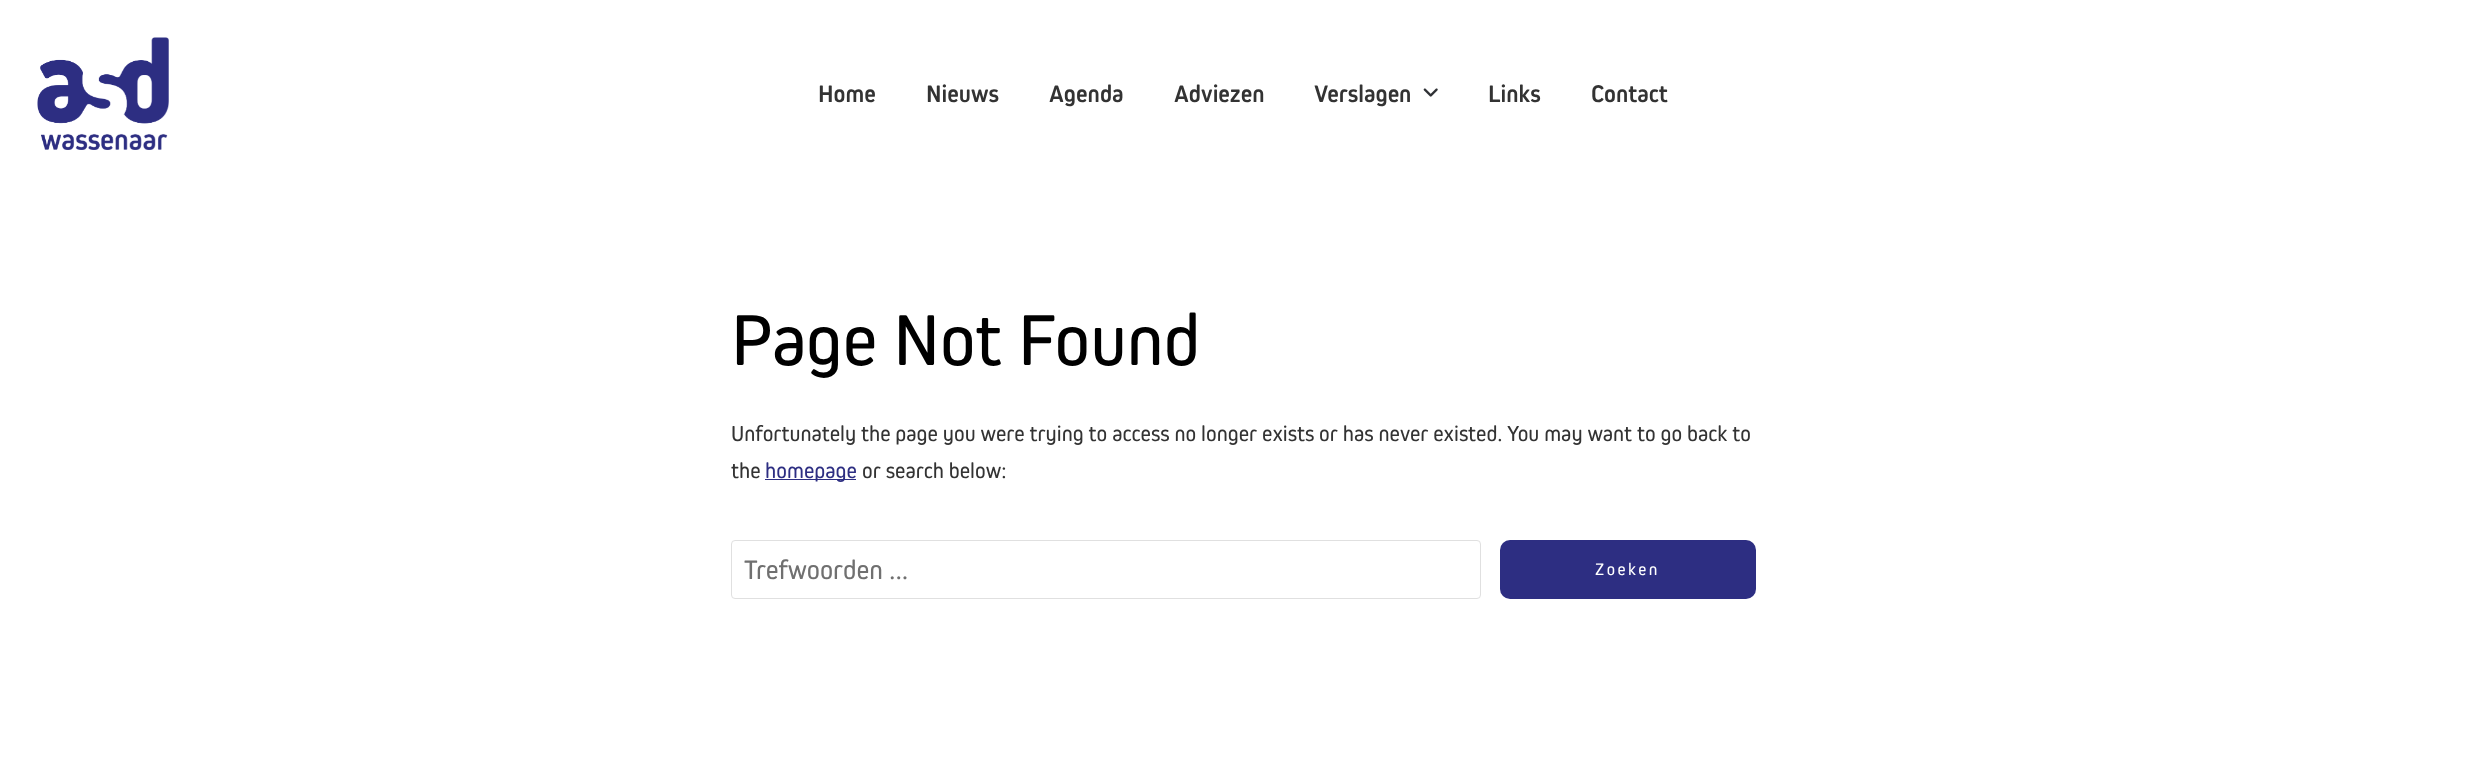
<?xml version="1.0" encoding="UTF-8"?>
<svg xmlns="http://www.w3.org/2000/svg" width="2486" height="783">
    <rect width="100%" height="100%" fill="#FFFFFF"/>
    <image x="37" y="37" width="132" height="113" href="img_01.png"/>
    <text x="818" y="102" font-family="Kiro" font-size="25" font-weight="700" fill="#333333">Home</text>
    <text x="926" y="102" font-family="Kiro" font-size="25" font-weight="700" fill="#333333">Nieuws</text>
    <text x="1049" y="102" font-family="Kiro" font-size="25" font-weight="700" fill="#333333">Agenda</text>
    <text x="1174" y="102" font-family="Kiro" font-size="25" font-weight="700" fill="#333333">Adviezen</text>
    <text x="1314" y="102" font-family="Kiro" font-size="25" font-weight="700" fill="#333333">Verslagen</text>
    <image x="1423" y="88" width="15" height="9" href="img_02.png"/>
    <text x="1488" y="102" font-family="Kiro" font-size="25" font-weight="700" fill="#333333">Links</text>
    <text x="1591" y="102" font-family="Kiro" font-size="25" font-weight="700" fill="#333333">Contact</text>
    <text x="731" y="365" font-family="Kiro" font-size="75" fill="#000000">Page Not Found</text>
    <text font-family="Kiro" font-size="22.5" fill="#333333">
        <tspan x="731" y="441">Unfortunately the page you were trying to access no longer exists or has never existed. You may want to go back to</tspan>
        <tspan x="731" y="478">the</tspan>
    </text>
    <rect x="765" y="479" width="91" height="1" fill="#2D2E82"/>
    <text x="765" y="478" font-family="Kiro" font-size="22.5" fill="#2D2E82">homepage</text>
    <text x="862" y="478" font-family="Kiro" font-size="22.5" fill="#333333">or search below:</text>
    <rect x="731.5" y="540.5" width="749" height="58" rx="3.5" fill="none" stroke="#E0E0E0"/>
    <text x="744" y="579" font-family="Kiro" font-size="27.75" fill="#707070">Trefwoorden ...</text>
    <rect x="1500" y="540" width="256" height="59" rx="10" fill="#2D2E82"/>
    <text x="1595" y="575" font-family="Kiro" font-size="17.5" letter-spacing="2.5" fill="#FFFFFF">Zoeken</text>
</svg>
